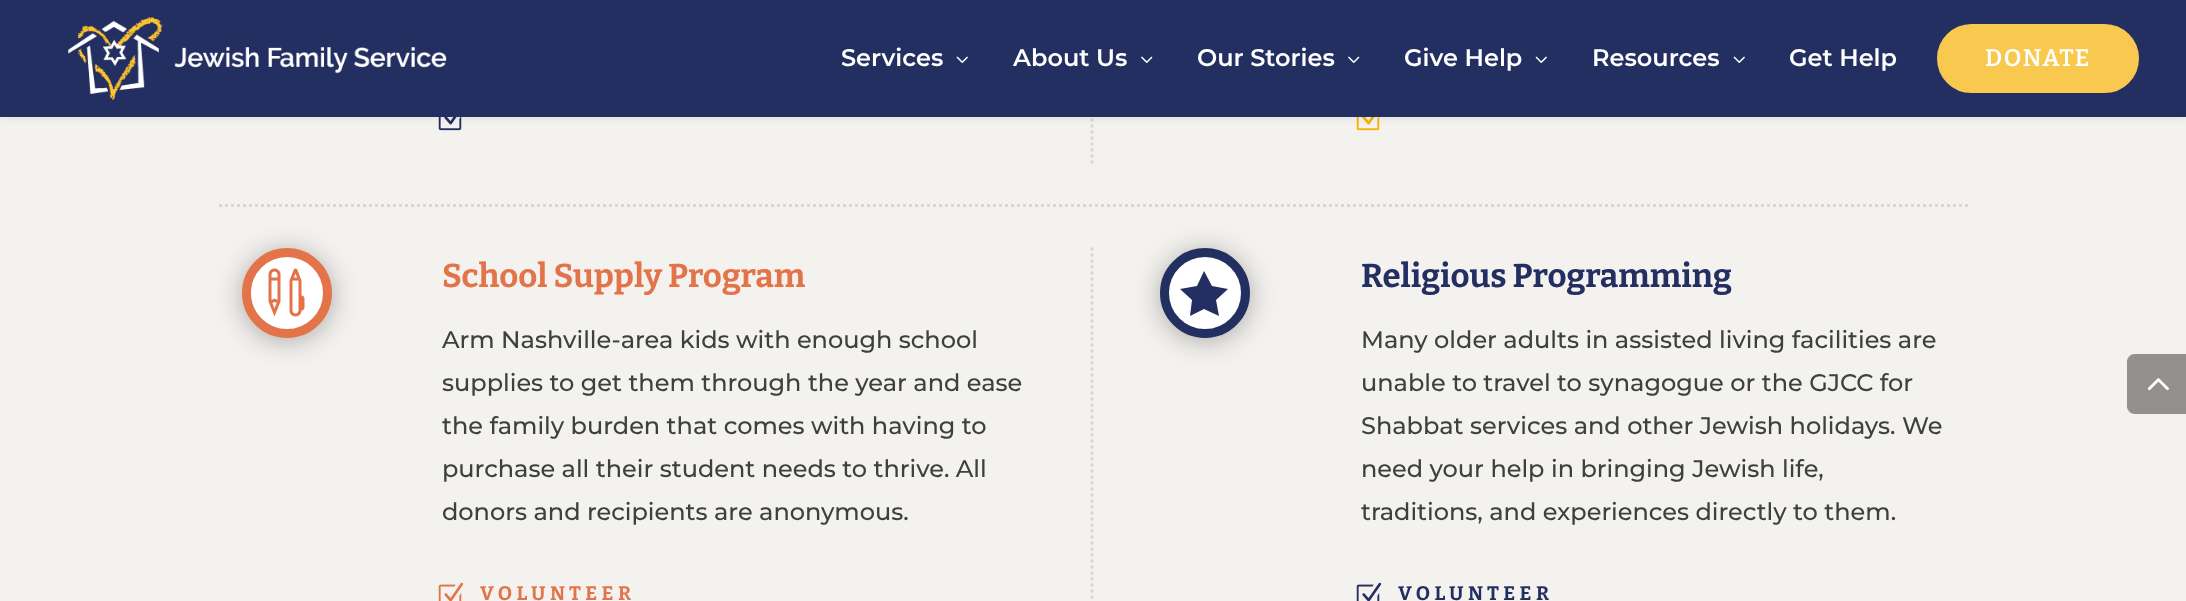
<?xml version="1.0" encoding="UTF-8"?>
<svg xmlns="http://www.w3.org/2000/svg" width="2186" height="601">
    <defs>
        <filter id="blur1" x="-50%" y="-200%" width="200%" height="500%"><feGaussianBlur stdDeviation="5"/></filter>
        <filter id="blur2" x="-50%" y="-200%" width="200%" height="500%"><feGaussianBlur stdDeviation="13.5"/></filter>
    </defs>
    <rect width="100%" height="100%" fill="#F4F2EF"/>
    <path d="M 1092 -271.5 V 163.5" fill="none" stroke="#D9D7D5" stroke-width="3" stroke-dasharray="3 3"/>
    <image x="438" y="117" width="24" height="14" href="img_04.png"/>
    <image x="1356" y="117" width="24" height="14" href="img_05.png"/>
    <rect x="0" y="0" width="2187" height="117" fill="#000000" fill-opacity="0.1" filter="url(#blur1)"/>
    <rect x="0" y="0" width="2186" height="117" fill="#232E61"/>
    <image x="68" y="17" width="379" height="83" href="img_01.png"/>
    <text x="841" y="66" font-family="'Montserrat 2'" font-size="24" font-weight="100" fill="#FFFFFF">Services</text>
    <image x="956" y="56" width="12" height="7" href="img_02.png"/>
    <text x="1013" y="66" font-family="'Montserrat 2'" font-size="24" font-weight="100" fill="#FFFFFF">About Us</text>
    <image x="1141" y="56" width="12" height="7" href="img_03.png"/>
    <text x="1197" y="66" font-family="'Montserrat 2'" font-size="24" font-weight="100" fill="#FFFFFF">Our Stories</text>
    <image x="1348" y="56" width="12" height="7" href="img_03.png"/>
    <text x="1404" y="66" font-family="'Montserrat 2'" font-size="24" font-weight="100" fill="#FFFFFF">Give Help</text>
    <image x="1535" y="56" width="12" height="7" href="img_02.png"/>
    <text x="1592" y="66" font-family="'Montserrat 2'" font-size="24" font-weight="100" fill="#FFFFFF">Resources</text>
    <image x="1733" y="56" width="12" height="7" href="img_02.png"/>
    <text x="1789" y="66" font-family="'Montserrat 2'" font-size="24" font-weight="100" fill="#FFFFFF">Get Help</text>
    <rect x="1938.5" y="25.5" width="199" height="66" rx="33" fill="#F8C84F" stroke="#F8C84F" stroke-width="3"/>
    <text x="1985" y="66" font-family="'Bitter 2'" font-size="24" font-weight="100" letter-spacing="1.5" fill="#FFFFFF">DONATE</text>
    <path d="M 219 205.5 H 1968" fill="none" stroke="#D9D7D5" stroke-width="3" stroke-dasharray="3 3"/>
    <path d="M 1092 247.5 V 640.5" fill="none" stroke="#D9D7D5" stroke-width="3" stroke-dasharray="3 3"/>
    <rect x="242" y="251" width="90" height="90" rx="45" fill="#000000" fill-opacity="0.3" filter="url(#blur2)"/>
    <circle cx="287" cy="293" r="40.5" fill="#FFFFFF" stroke="#E37349" stroke-width="9"/>
    <image x="268" y="268" width="37" height="49" href="img_06.png"/>
    <text x="442" y="287" font-family="Bitter" font-size="33" font-weight="100" fill="#E37349">School Supply Program</text>
    <text font-family="Montserrat" font-size="24" font-weight="100" fill="#3C4041">
        <tspan x="442" y="348">Arm Nashville-area kids with enough school</tspan>
        <tspan x="442" y="391">supplies to get them through the year and ease</tspan>
        <tspan x="442" y="434">the family burden that comes with having to</tspan>
        <tspan x="442" y="477">purchase all their student needs to thrive. All</tspan>
        <tspan x="442" y="520">donors and recipients are anonymous.</tspan>
    </text>
    <image x="438" y="582" width="26" height="19" href="img_07.png"/>
    <text x="480" y="600" font-family="Bitter" font-size="19.5" font-weight="100" letter-spacing="4.5" fill="#E37349">VOLUNTEER</text>
    <rect x="1160" y="251" width="90" height="90" rx="45" fill="#000000" fill-opacity="0.3" filter="url(#blur2)"/>
    <circle cx="1205" cy="293" r="40.5" fill="#FFFFFF" stroke="#232E61" stroke-width="9"/>
    <path d="M 1212 286 L 1204 271 L 1197 286 L 1180 289 L 1192 300 L 1190 316 L 1204 309 L 1219 316 L 1216 300 L 1228 289 Z" fill="#232E61"/>
    <text x="1361" y="287" font-family="Bitter" font-size="33" font-weight="100" fill="#232E61">Religious Programming</text>
    <text font-family="Montserrat" font-size="24" font-weight="100" fill="#3C4041">
        <tspan x="1361" y="348">Many older adults in assisted living facilities are</tspan>
        <tspan x="1361" y="391">unable to travel to synagogue or the GJCC for</tspan>
        <tspan x="1361" y="434">Shabbat services and other Jewish holidays. We</tspan>
        <tspan x="1361" y="477">need your help in bringing Jewish life,</tspan>
        <tspan x="1361" y="520">traditions, and experiences directly to them.</tspan>
    </text>
    <image x="1356" y="582" width="26" height="19" href="img_08.png"/>
    <text x="1398" y="600" font-family="Bitter" font-size="19.5" font-weight="100" letter-spacing="4.5" fill="#232E61">VOLUNTEER</text>
    <path d="M 2135 354 H 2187 V 414 H 2135 C 2130.5 414 2127 410.5 2127 406 V 362 C 2127 357.5 2130.5 354 2135 354 Z" fill="#92918F"/>
    <image x="2147" y="378" width="22" height="13" href="img_09.png"/>
</svg>
